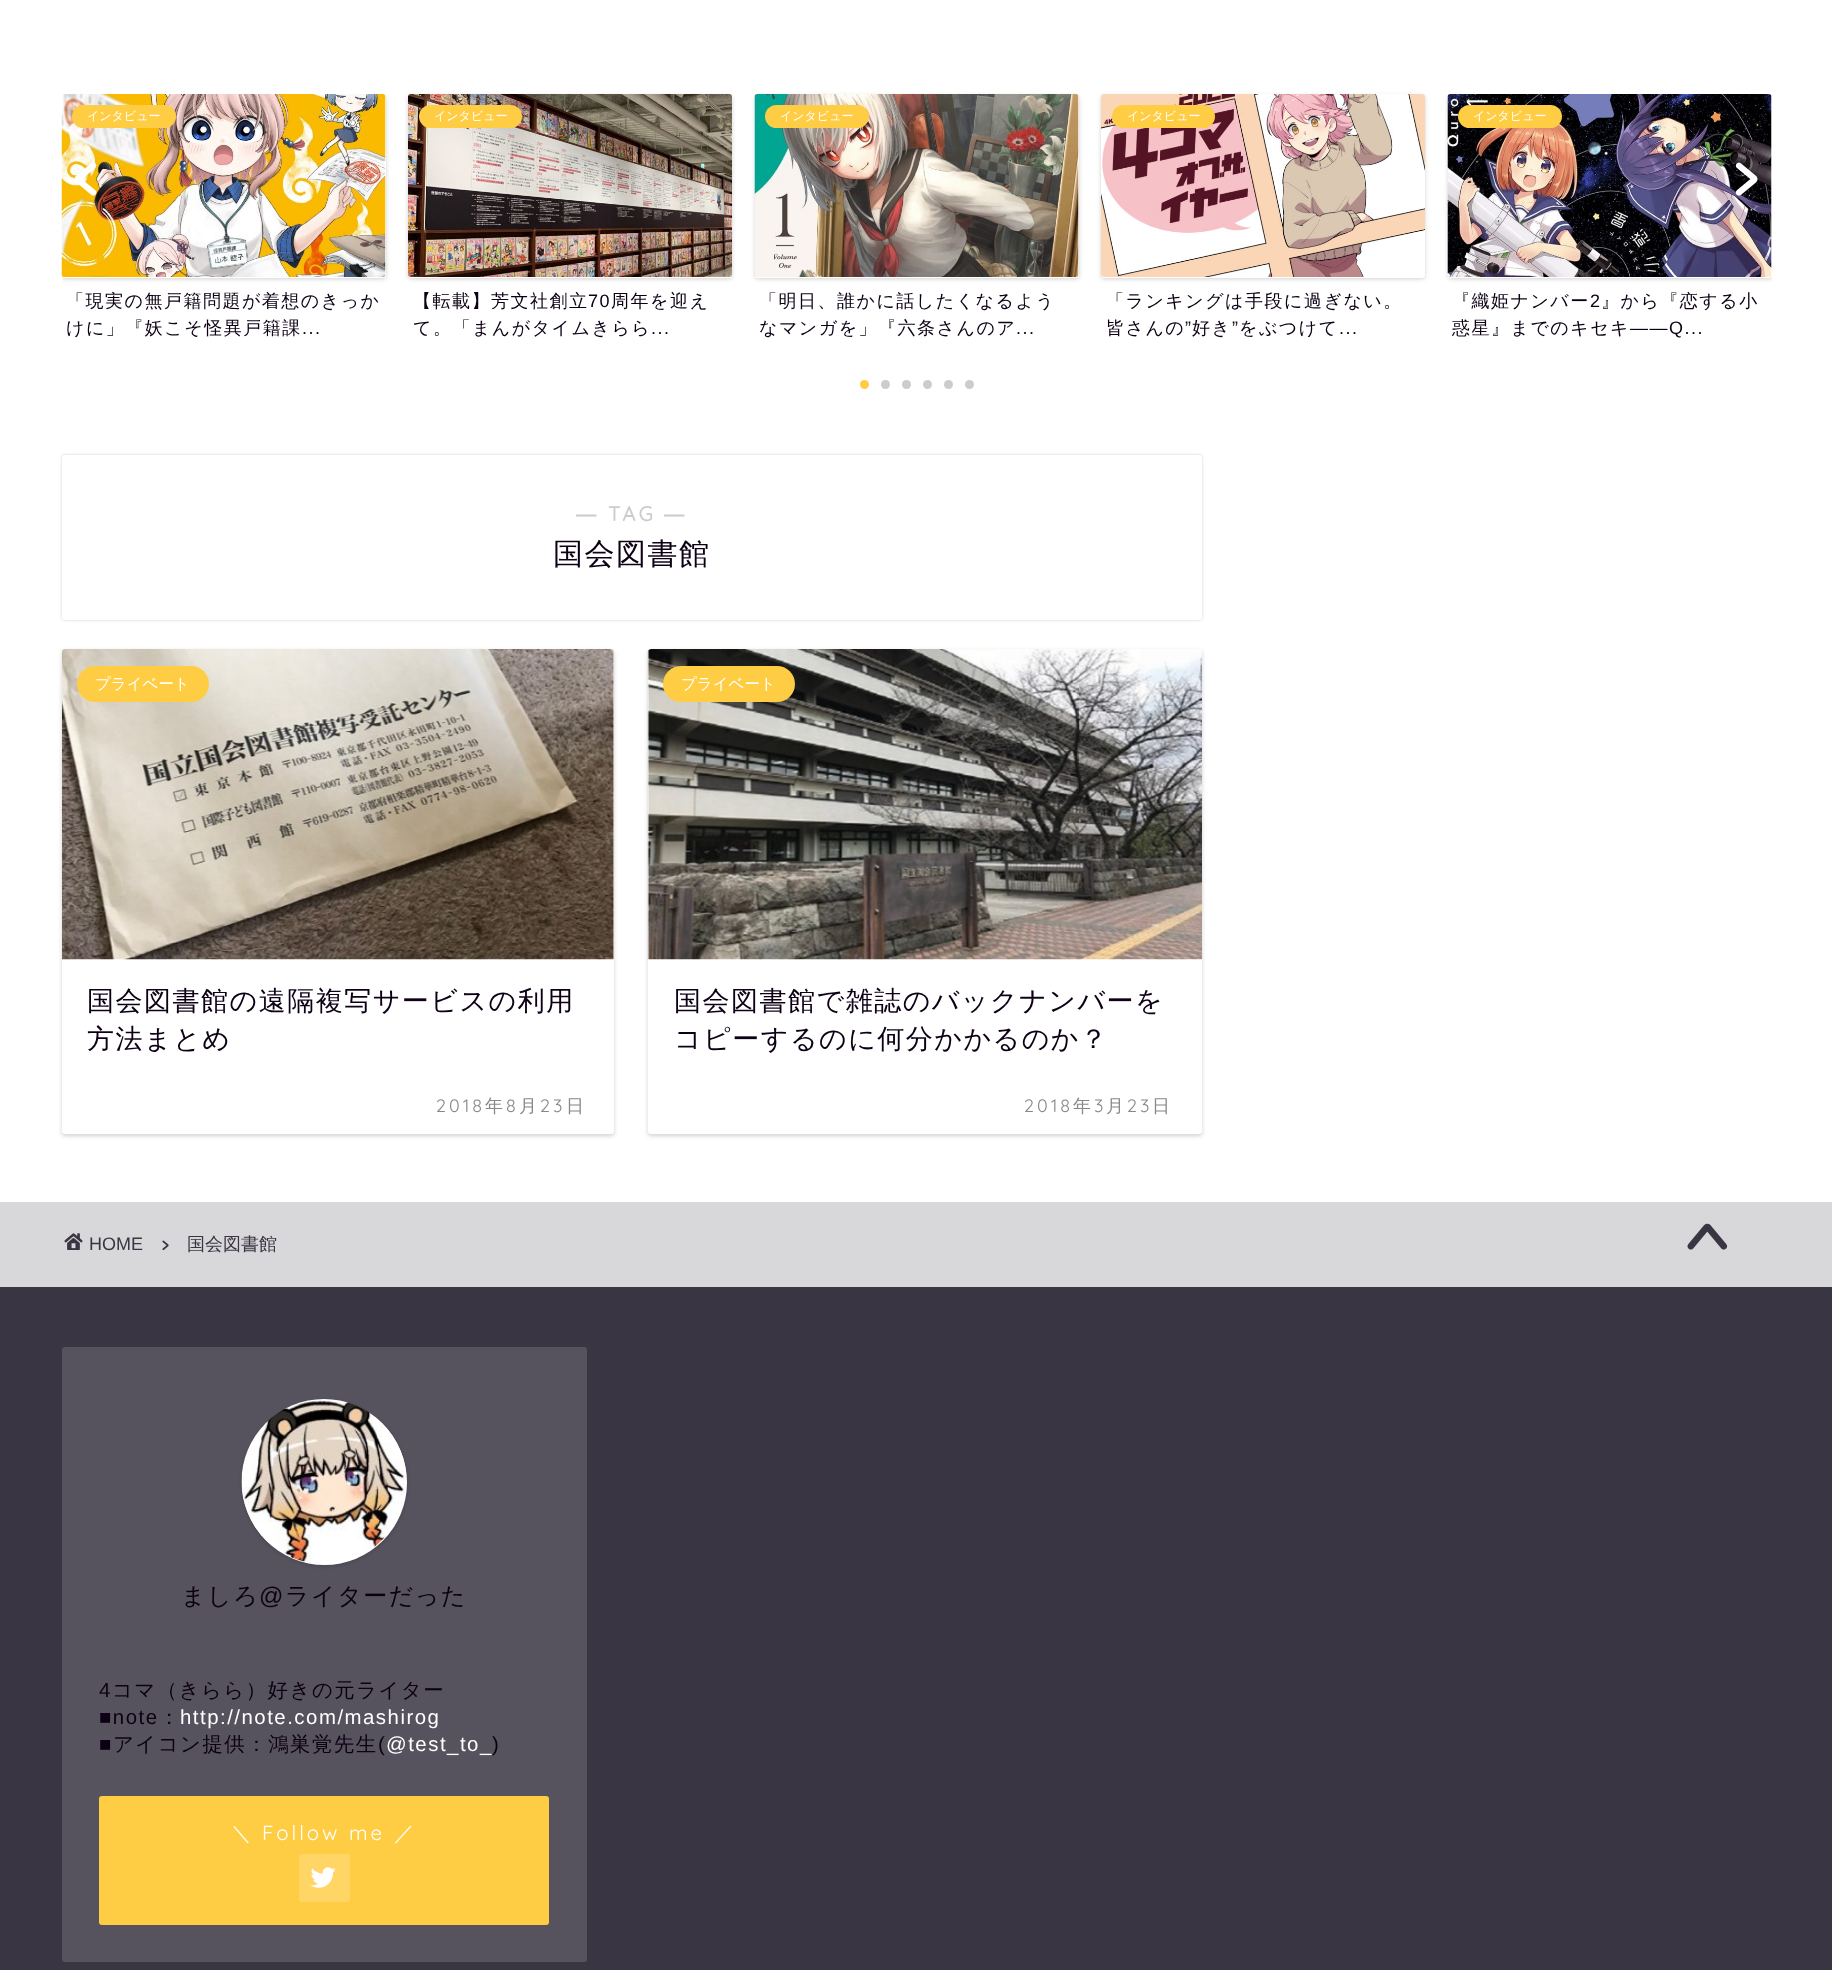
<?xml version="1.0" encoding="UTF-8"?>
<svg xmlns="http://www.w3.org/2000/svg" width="1832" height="1970">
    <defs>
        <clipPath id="clip1"><rect x="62" y="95" width="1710" height="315"/></clipPath>
        <filter id="blur1" x="-50%" y="-200%" width="200%" height="500%"><feGaussianBlur stdDeviation="2"/></filter>
        <filter id="blur2" x="-50%" y="-200%" width="200%" height="500%"><feGaussianBlur stdDeviation="1.5"/></filter>
    </defs>
    <rect width="100%" height="100%" fill="#FFFFFF"/>
    <g clip-path="url(#clip1)">
        <rect x="62" y="96" width="324" height="183" rx="3" fill="#000000" fill-opacity="0.18" filter="url(#blur1)"/>
    </g>
    <rect x="62" y="95" width="324" height="183" rx="3" fill="#FFFFFF"/>
    <image x="61" y="94" width="325" height="183" href="img_01.png"/>
    <rect x="72" y="105" width="104" height="23" rx="11.5" fill="#FFCD44"/>
    <text x="87" y="120" font-family="WenQuanYi Zen Hei" font-size="12" font-weight="500" fill="#FFFFFF">インタビュー</text>
    <text font-family="WenQuanYi Zen Hei" font-size="18" font-weight="500" letter-spacing="1.5" fill="#0D0015">
        <tspan x="66" y="307">「現実の無戸籍問題が着想のきっか</tspan>
        <tspan x="66" y="334">けに」『妖こそ怪異戸籍課</tspan>
    </text>
    <text x="302" y="334" font-family="Liberation Sans" font-size="18" letter-spacing="1.5" fill="#0D0015">...</text>
    <rect x="408" y="96" width="324" height="183" rx="3" fill="#000000" fill-opacity="0.18" filter="url(#blur1)"/>
    <rect x="408" y="95" width="324" height="183" rx="3" fill="#FFFFFF"/>
    <image x="408" y="94" width="324" height="183" href="img_02.png"/>
    <rect x="419" y="105" width="103" height="23" rx="11.5" fill="#FFCD44"/>
    <text x="434" y="120" font-family="WenQuanYi Zen Hei" font-size="12" font-weight="500" fill="#FFFFFF">インタビュー</text>
    <text x="413" y="307" font-family="WenQuanYi Zen Hei" font-size="18" font-weight="500" letter-spacing="1.5" fill="#0D0015">【転載】芳文社創立</text>
    <text x="588" y="307" font-family="Liberation Sans" font-size="18" letter-spacing="1.5" fill="#0D0015">70</text>
    <text x="611" y="307" font-family="WenQuanYi Zen Hei" font-size="18" font-weight="500" letter-spacing="1.5" fill="#0D0015">周年を迎え</text>
    <text x="413" y="334" font-family="WenQuanYi Zen Hei" font-size="18" font-weight="500" letter-spacing="1.5" fill="#0D0015">て。「まんがタイムきらら</text>
    <text x="651" y="334" font-family="Liberation Sans" font-size="18" letter-spacing="1.5" fill="#0D0015">...</text>
    <rect x="755" y="96" width="324" height="183" rx="3" fill="#000000" fill-opacity="0.18" filter="url(#blur1)"/>
    <rect x="755" y="95" width="324" height="183" rx="3" fill="#FFFFFF"/>
    <image x="754" y="94" width="325" height="183" href="img_03.png"/>
    <rect x="765" y="105" width="104" height="23" rx="11.5" fill="#FFCD44"/>
    <text x="780" y="120" font-family="WenQuanYi Zen Hei" font-size="12" font-weight="500" fill="#FFFFFF">インタビュー</text>
    <text font-family="WenQuanYi Zen Hei" font-size="18" font-weight="500" letter-spacing="1.5" fill="#0D0015">
        <tspan x="759" y="307">「明日、誰かに話したくなるよう</tspan>
        <tspan x="759" y="334">なマンガを」『六条さんのア</tspan>
    </text>
    <text x="1016" y="334" font-family="Liberation Sans" font-size="18" letter-spacing="1.5" fill="#0D0015">...</text>
    <rect x="1101" y="96" width="324" height="183" rx="3" fill="#000000" fill-opacity="0.18" filter="url(#blur1)"/>
    <rect x="1101" y="95" width="324" height="183" rx="3" fill="#FFFFFF"/>
    <image x="1101" y="94" width="324" height="183" href="img_04.png"/>
    <rect x="1112" y="105" width="103" height="23" rx="11.5" fill="#FFCD44"/>
    <text x="1127" y="120" font-family="WenQuanYi Zen Hei" font-size="12" font-weight="500" fill="#FFFFFF">インタビュー</text>
    <text font-family="WenQuanYi Zen Hei" font-size="18" font-weight="500" letter-spacing="1.5" fill="#0D0015">
        <tspan x="1106" y="307">「ランキングは手段に過ぎない。</tspan>
        <tspan x="1106" y="334">皆さんの</tspan>
    </text>
    <text x="1185" y="334" font-family="Liberation Sans" font-size="18" letter-spacing="1.5" fill="#0D0015">”</text>
    <text x="1192" y="334" font-family="WenQuanYi Zen Hei" font-size="18" font-weight="500" letter-spacing="1.5" fill="#0D0015">好き</text>
    <text x="1232" y="334" font-family="Liberation Sans" font-size="18" letter-spacing="1.5" fill="#0D0015">”</text>
    <text x="1239" y="334" font-family="WenQuanYi Zen Hei" font-size="18" font-weight="500" letter-spacing="1.5" fill="#0D0015">をぶつけて</text>
    <text x="1339" y="334" font-family="Liberation Sans" font-size="18" letter-spacing="1.5" fill="#0D0015">...</text>
    <g clip-path="url(#clip1)">
        <rect x="1448" y="96" width="324" height="183" rx="3" fill="#000000" fill-opacity="0.18" filter="url(#blur1)"/>
    </g>
    <rect x="1448" y="95" width="324" height="183" rx="3" fill="#FFFFFF"/>
    <image x="1447" y="94" width="325" height="183" href="img_05.png"/>
    <rect x="1458" y="105" width="104" height="23" rx="11.5" fill="#FFCD44"/>
    <text x="1473" y="120" font-family="WenQuanYi Zen Hei" font-size="12" font-weight="500" fill="#FFFFFF">インタビュー</text>
    <text x="1452" y="307" font-family="WenQuanYi Zen Hei" font-size="18" font-weight="500" letter-spacing="1.5" fill="#0D0015">『織姫ナンバー</text>
    <text x="1590" y="307" font-family="Liberation Sans" font-size="18" letter-spacing="1.5" fill="#0D0015">2</text>
    <text x="1601" y="307" font-family="WenQuanYi Zen Hei" font-size="18" font-weight="500" letter-spacing="1.5" fill="#0D0015">』から『恋する小</text>
    <text x="1452" y="334" font-family="WenQuanYi Zen Hei" font-size="18" font-weight="500" letter-spacing="1.5" fill="#0D0015">惑星』までのキセキ</text>
    <text x="1630" y="334" font-family="Liberation Sans" font-size="18" letter-spacing="1.5" fill="#0D0015">――Q...</text>
    <image x="74" y="162" width="23" height="34" href="img_06.png"/>
    <image x="1735" y="162" width="23" height="34" href="img_07.png"/>
    <circle cx="864.5" cy="384.5" r="4.5" fill="#FFCD44"/>
    <circle cx="885.5" cy="384.5" r="4.5" fill="#CCCCCC"/>
    <circle cx="906.5" cy="384.5" r="4.5" fill="#CCCCCC"/>
    <circle cx="927.5" cy="384.5" r="4.5" fill="#CCCCCC"/>
    <circle cx="948.5" cy="384.5" r="4.5" fill="#CCCCCC"/>
    <circle cx="969.5" cy="384.5" r="4.5" fill="#CCCCCC"/>
    <rect x="62" y="455" width="1140" height="165" rx="3" fill="#000000" fill-opacity="0.18" filter="url(#blur2)"/>
    <rect x="62" y="455" width="1140" height="165" rx="3" fill="#FFFFFF"/>
    <text x="576" y="521" font-family="Liberation Sans" font-size="20.4" font-weight="700" letter-spacing="3" fill="#CCCCCC">―</text>
    <text x="608" y="521" font-family="Quicksand" font-size="20.4" font-weight="700" letter-spacing="3" fill="#CCCCCC">TAG</text>
    <text x="664" y="521" font-family="Liberation Sans" font-size="20.4" font-weight="700" letter-spacing="3" fill="#CCCCCC">―</text>
    <text x="553" y="564" font-family="WenQuanYi Zen Hei" font-size="30" font-weight="500" letter-spacing="1.5" fill="#0D0015">国会図書館</text>
    <rect x="62" y="651" width="552" height="485" rx="3" fill="#000000" fill-opacity="0.18" filter="url(#blur1)"/>
    <rect x="62" y="650" width="552" height="484" rx="3" fill="#FFFFFF"/>
    <image x="62" y="649" width="552" height="311" href="img_08.png"/>
    <rect x="77" y="666" width="132" height="36" rx="18" fill="#FFCD44"/>
    <text x="95" y="689" font-family="WenQuanYi Zen Hei" font-size="15.5" font-weight="500" fill="#FFFFFF">プライベート</text>
    <text font-family="WenQuanYi Zen Hei" font-size="27" font-weight="500" letter-spacing="1.5" fill="#0D0015">
        <tspan x="87" y="1010">国会図書館の遠隔複写サービスの利用</tspan>
        <tspan x="87" y="1048">方法まとめ</tspan>
    </text>
    <text x="436" y="1112" font-family="Quicksand" font-size="18" font-weight="300" letter-spacing="3" fill="#888888">2018</text>
    <text x="485" y="1112" font-family="WenQuanYi Zen Hei" font-size="18" font-weight="500" letter-spacing="3" fill="#888888">年</text>
    <text x="506" y="1112" font-family="Quicksand" font-size="18" font-weight="300" letter-spacing="3" fill="#888888">8</text>
    <text x="519" y="1112" font-family="WenQuanYi Zen Hei" font-size="18" font-weight="500" letter-spacing="3" fill="#888888">月</text>
    <text x="540" y="1112" font-family="Quicksand" font-size="18" font-weight="300" letter-spacing="3" fill="#888888">23</text>
    <text x="566" y="1112" font-family="WenQuanYi Zen Hei" font-size="18" font-weight="500" letter-spacing="3" fill="#888888">日</text>
    <rect x="648" y="651" width="554" height="485" rx="3" fill="#000000" fill-opacity="0.18" filter="url(#blur1)"/>
    <rect x="648" y="650" width="554" height="484" rx="3" fill="#FFFFFF"/>
    <image x="647" y="649" width="555" height="311" href="img_09.png"/>
    <rect x="663" y="666" width="132" height="36" rx="18" fill="#FFCD44"/>
    <text x="681" y="689" font-family="WenQuanYi Zen Hei" font-size="15.5" font-weight="500" fill="#FFFFFF">プライベート</text>
    <text font-family="WenQuanYi Zen Hei" font-size="27" font-weight="500" letter-spacing="1.5" fill="#0D0015">
        <tspan x="674" y="1010">国会図書館で雑誌のバックナンバーを</tspan>
        <tspan x="674" y="1048">コピーするのに何分かかるのか？</tspan>
    </text>
    <text x="1024" y="1112" font-family="Quicksand" font-size="18" font-weight="300" letter-spacing="3" fill="#888888">2018</text>
    <text x="1073" y="1112" font-family="WenQuanYi Zen Hei" font-size="18" font-weight="500" letter-spacing="3" fill="#888888">年</text>
    <text x="1094" y="1112" font-family="Quicksand" font-size="18" font-weight="300" letter-spacing="3" fill="#888888">3</text>
    <text x="1106" y="1112" font-family="WenQuanYi Zen Hei" font-size="18" font-weight="500" letter-spacing="3" fill="#888888">月</text>
    <text x="1127" y="1112" font-family="Quicksand" font-size="18" font-weight="300" letter-spacing="3" fill="#888888">23</text>
    <text x="1152" y="1112" font-family="WenQuanYi Zen Hei" font-size="18" font-weight="500" letter-spacing="3" fill="#888888">日</text>
    <rect x="0" y="1202" width="1832" height="85" fill="#D8D7DA"/>
    <image x="64" y="1233" width="19" height="17" href="img_10.png"/>
    <text x="89" y="1250" font-family="Liberation Sans" font-size="18" fill="#393542">HOME</text>
    <image x="162" y="1240" width="7" height="11" href="img_11.png"/>
    <text x="187" y="1250" font-family="WenQuanYi Zen Hei" font-size="18" font-weight="500" fill="#393542">国会図書館</text>
    <image x="1687" y="1223" width="41" height="27" href="img_12.png"/>
    <rect x="0" y="1287" width="1832" height="683" fill="#393542"/>
    <rect x="62" y="1347" width="525" height="615" rx="3" fill="#57535E"/>
    <rect x="242" y="1401" width="165" height="165" rx="82.5" fill="#000000" fill-opacity="0.18" filter="url(#blur1)"/>
    <circle cx="324.5" cy="1482.5" r="82.5" fill="#FFFFFF"/>
    <image x="241" y="1399" width="165" height="164" href="img_13.png"/>
    <text x="181" y="1604" font-family="WenQuanYi Zen Hei" font-size="24" font-weight="500" letter-spacing="1.5" fill="#0D0015">ましろ</text>
    <text x="259" y="1604" font-family="Liberation Sans" font-size="24" letter-spacing="1.5" fill="#0D0015">@</text>
    <text x="285" y="1604" font-family="WenQuanYi Zen Hei" font-size="24" font-weight="500" letter-spacing="1.5" fill="#0D0015">ライターだった</text>
    <text x="99" y="1697" font-family="Liberation Sans" font-size="20.4" letter-spacing="1.5" fill="#0D0015">4</text>
    <text x="112" y="1697" font-family="WenQuanYi Zen Hei" font-size="20.4" font-weight="500" letter-spacing="1.5" fill="#0D0015">コマ（きらら）好きの元ライター</text>
    <text x="99" y="1724" font-family="Liberation Sans" font-size="20.4" letter-spacing="1.5" fill="#0D0015">■note</text>
    <text x="159" y="1724" font-family="WenQuanYi Zen Hei" font-size="20.4" font-weight="500" letter-spacing="1.5" fill="#0D0015">：</text>
    <text x="180" y="1724" font-family="Liberation Sans" font-size="20.4" letter-spacing="1.5" fill="#FFFFFF">http://note.com/mashirog</text>
    <text x="99" y="1751" font-family="Liberation Sans" font-size="20.4" letter-spacing="1.5" fill="#0D0015">■</text>
    <text x="113" y="1751" font-family="WenQuanYi Zen Hei" font-size="20.4" font-weight="500" letter-spacing="1.5" fill="#0D0015">アイコン提供：鴻巣覚先生</text>
    <text x="378" y="1751" font-family="Liberation Sans" font-size="20.4" letter-spacing="1.5" fill="#0D0015">(</text>
    <text x="386" y="1751" font-family="Liberation Sans" font-size="20.4" letter-spacing="1.5" fill="#FFFFFF">@test_to_</text>
    <text x="492" y="1751" font-family="Liberation Sans" font-size="20.4" letter-spacing="1.5" fill="#0D0015">)</text>
    <rect x="99" y="1796" width="450" height="129" rx="3" fill="#FFCD44"/>
    <text x="231" y="1840" font-family="WenQuanYi Zen Hei" font-size="20.4" font-weight="500" letter-spacing="3" fill="#FFFFFF">＼</text>
    <text x="262" y="1840" font-family="Quicksand" font-size="20.4" font-weight="300" letter-spacing="3" fill="#FFFFFF">Follow me</text>
    <text x="394" y="1840" font-family="WenQuanYi Zen Hei" font-size="20.4" font-weight="500" letter-spacing="3" fill="#FFFFFF">／</text>
    <rect x="299" y="1854" width="51" height="48" rx="3" fill="#FFD666"/>
    <image x="310" y="1867" width="26" height="21" href="img_14.png"/>
</svg>
